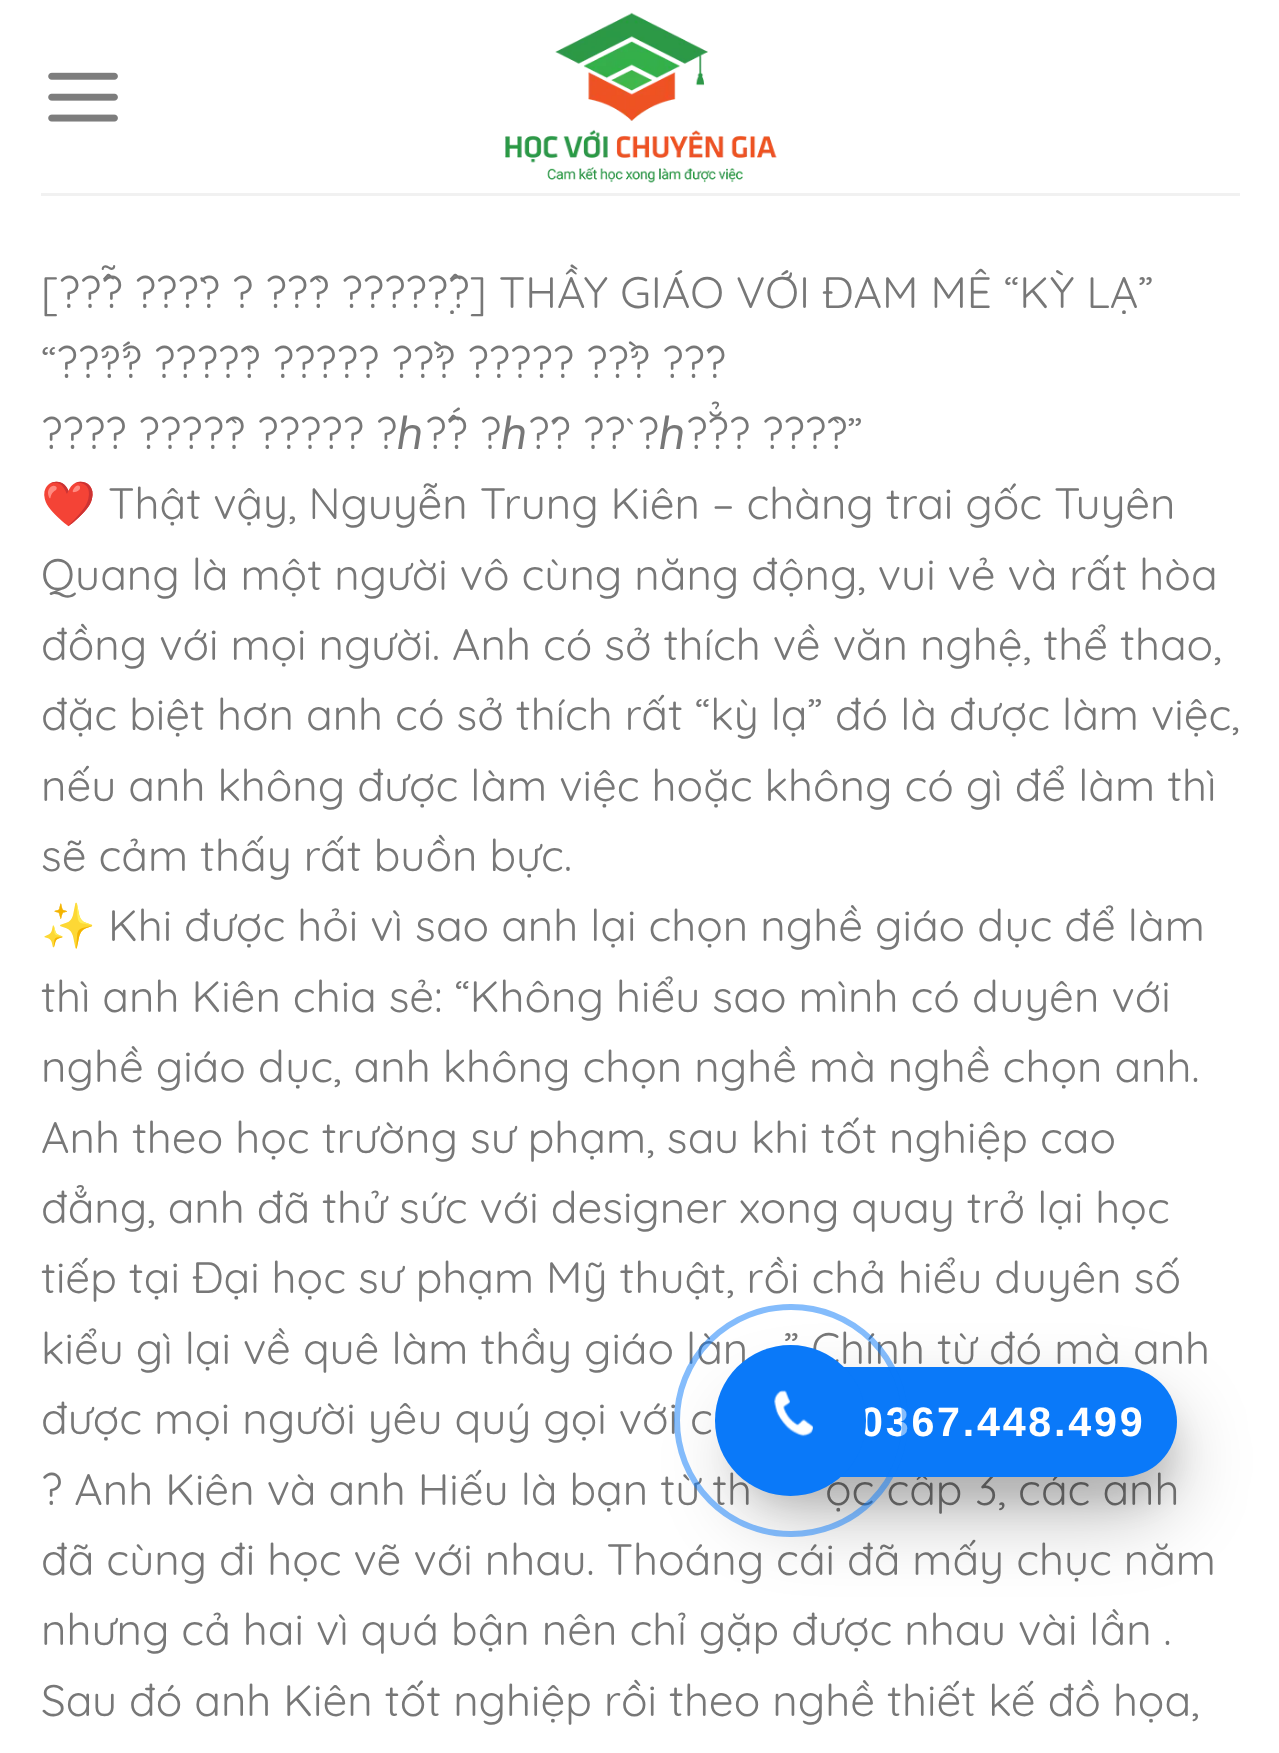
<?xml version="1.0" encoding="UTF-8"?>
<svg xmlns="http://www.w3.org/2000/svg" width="1279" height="1753">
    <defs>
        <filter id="blur1" x="-50%" y="-200%" width="200%" height="500%"><feGaussianBlur stdDeviation="14"/></filter>
        <filter id="blur2" x="-50%" y="-200%" width="200%" height="500%"><feGaussianBlur stdDeviation="38.5"/></filter>
    </defs>
    <rect width="100%" height="100%" fill="#FFFFFF"/>
    <image x="48" y="72" width="70" height="50" href="img_01.png"/>
    <image x="505" y="12" width="272" height="171" href="img_02.png"/>
    <rect x="41" y="193" width="1199" height="3" fill="#F1F1F1"/>
    <text font-family="Quicksand" font-size="44" fill="#777777">
        <tspan x="41" y="308">[??̂̃? ???̀? ? ??̂? ?????̣̂?] THẦY GIÁO VỚI ĐAM MÊ “KỲ LẠ”</tspan>
        <tspan x="41" y="378">“??̛?̛́? ????̂? ????? ??̛̀? ????? ??̛̀? ??́?</tspan>
        <tspan x="41" y="449">???? ????̂? ????? ?</tspan>
    </text>
    <text x="397" y="449" font-family="Noto Sans" font-size="44" fill="#777777">ℎ</text>
    <text x="425" y="449" font-family="Quicksand" font-size="44" fill="#777777">?̂́? ?</text>
    <text x="501" y="449" font-family="Noto Sans" font-size="44" fill="#777777">ℎ</text>
    <text x="528" y="449" font-family="Quicksand" font-size="44" fill="#777777">?́? ??̀ ?</text>
    <text x="659" y="449" font-family="Noto Sans" font-size="44" fill="#777777">ℎ</text>
    <text x="686" y="449" font-family="Quicksand" font-size="44" fill="#777777">?̆̉?? ???̂?”</text>
    <text x="41" y="519" font-family="Noto Color Emoji" font-size="44" fill="#777777">❤️</text>
    <text x="108" y="519" font-family="Quicksand" font-size="44" fill="#777777">Thật vậy, Nguyễn Trung Kiên – chàng trai gốc Tuyên</text>
    <text font-family="Quicksand" font-size="44" fill="#777777">
        <tspan x="41" y="590">Quang là một người vô cùng năng động, vui vẻ và rất hòa</tspan>
        <tspan x="41" y="660">đồng với mọi người. Anh có sở thích về văn nghệ, thể thao,</tspan>
        <tspan x="41" y="730">đặc biệt hơn anh có sở thích rất “kỳ lạ” đó là được làm việc,</tspan>
        <tspan x="41" y="801">nếu anh không được làm việc hoặc không có gì để làm thì</tspan>
        <tspan x="41" y="871">sẽ cảm thấy rất buồn bực.</tspan>
    </text>
    <text x="41" y="941" font-family="Noto Color Emoji" font-size="44" fill="#777777">✨</text>
    <text x="108" y="941" font-family="Quicksand" font-size="44" fill="#777777">Khi được hỏi vì sao anh lại chọn nghề giáo dục để làm</text>
    <text font-family="Quicksand" font-size="44" fill="#777777">
        <tspan x="41" y="1012">thì anh Kiên chia sẻ: “Không hiểu sao mình có duyên với</tspan>
        <tspan x="41" y="1082">nghề giáo dục, anh không chọn nghề mà nghề chọn anh.</tspan>
        <tspan x="41" y="1153">Anh theo học trường sư phạm, sau khi tốt nghiệp cao</tspan>
        <tspan x="41" y="1223">đẳng, anh đã thử sức với designer xong quay trở lại học</tspan>
        <tspan x="41" y="1293">tiếp tại Đại học sư phạm Mỹ thuật, rồi chả hiểu duyên số</tspan>
        <tspan x="41" y="1364">kiểu gì lại về quê làm thầy giáo làn</tspan>
    </text>
    <text x="784" y="1364" font-family="Quicksand" font-size="44" fill="#777777">” Chính từ đó mà anh</text>
    <text font-family="Quicksand" font-size="44" fill="#777777">
        <tspan x="41" y="1434">được mọi người yêu quý gọi với c</tspan>
        <tspan x="41" y="1505">? Anh Kiên và anh Hiếu là bạn từ th</tspan>
    </text>
    <text x="825" y="1505" font-family="Quicksand" font-size="44" fill="#777777">ọc cấp 3, các anh</text>
    <text font-family="Quicksand" font-size="44" fill="#777777">
        <tspan x="41" y="1575">đã cùng đi học vẽ với nhau. Thoáng cái đã mấy chục năm</tspan>
        <tspan x="41" y="1645">nhưng cả hai vì quá bận nên chỉ gặp được nhau vài lần .</tspan>
        <tspan x="41" y="1716">Sau đó anh Kiên tốt nghiệp rồi theo nghề thiết kế đồ họa,</tspan>
    </text>
    <rect x="737" y="1394" width="440" height="110" rx="55" fill="#000000" fill-opacity="0.1" filter="url(#blur1)"/>
    <rect x="737" y="1405" width="440" height="110" rx="55" fill="#000000" fill-opacity="0.25" filter="url(#blur2)"/>
    <rect x="737" y="1367" width="440" height="110" rx="55" fill="#0A79F9"/>
    <text x="860" y="1436" font-family="Liberation Sans" font-size="41.25" font-weight="700" letter-spacing="2.75" fill="#FFFFFF">0367.448.499</text>
    <rect x="677" y="1307" width="228" height="227" rx="113.5" fill="none" stroke="#0A79F9" stroke-opacity="0.5" stroke-width="6"/>
    <circle cx="790.5" cy="1420.5" r="75.5" fill="#0A79F9"/>
    <image x="774" y="1390" width="39" height="47" href="img_03.png"/>
</svg>
